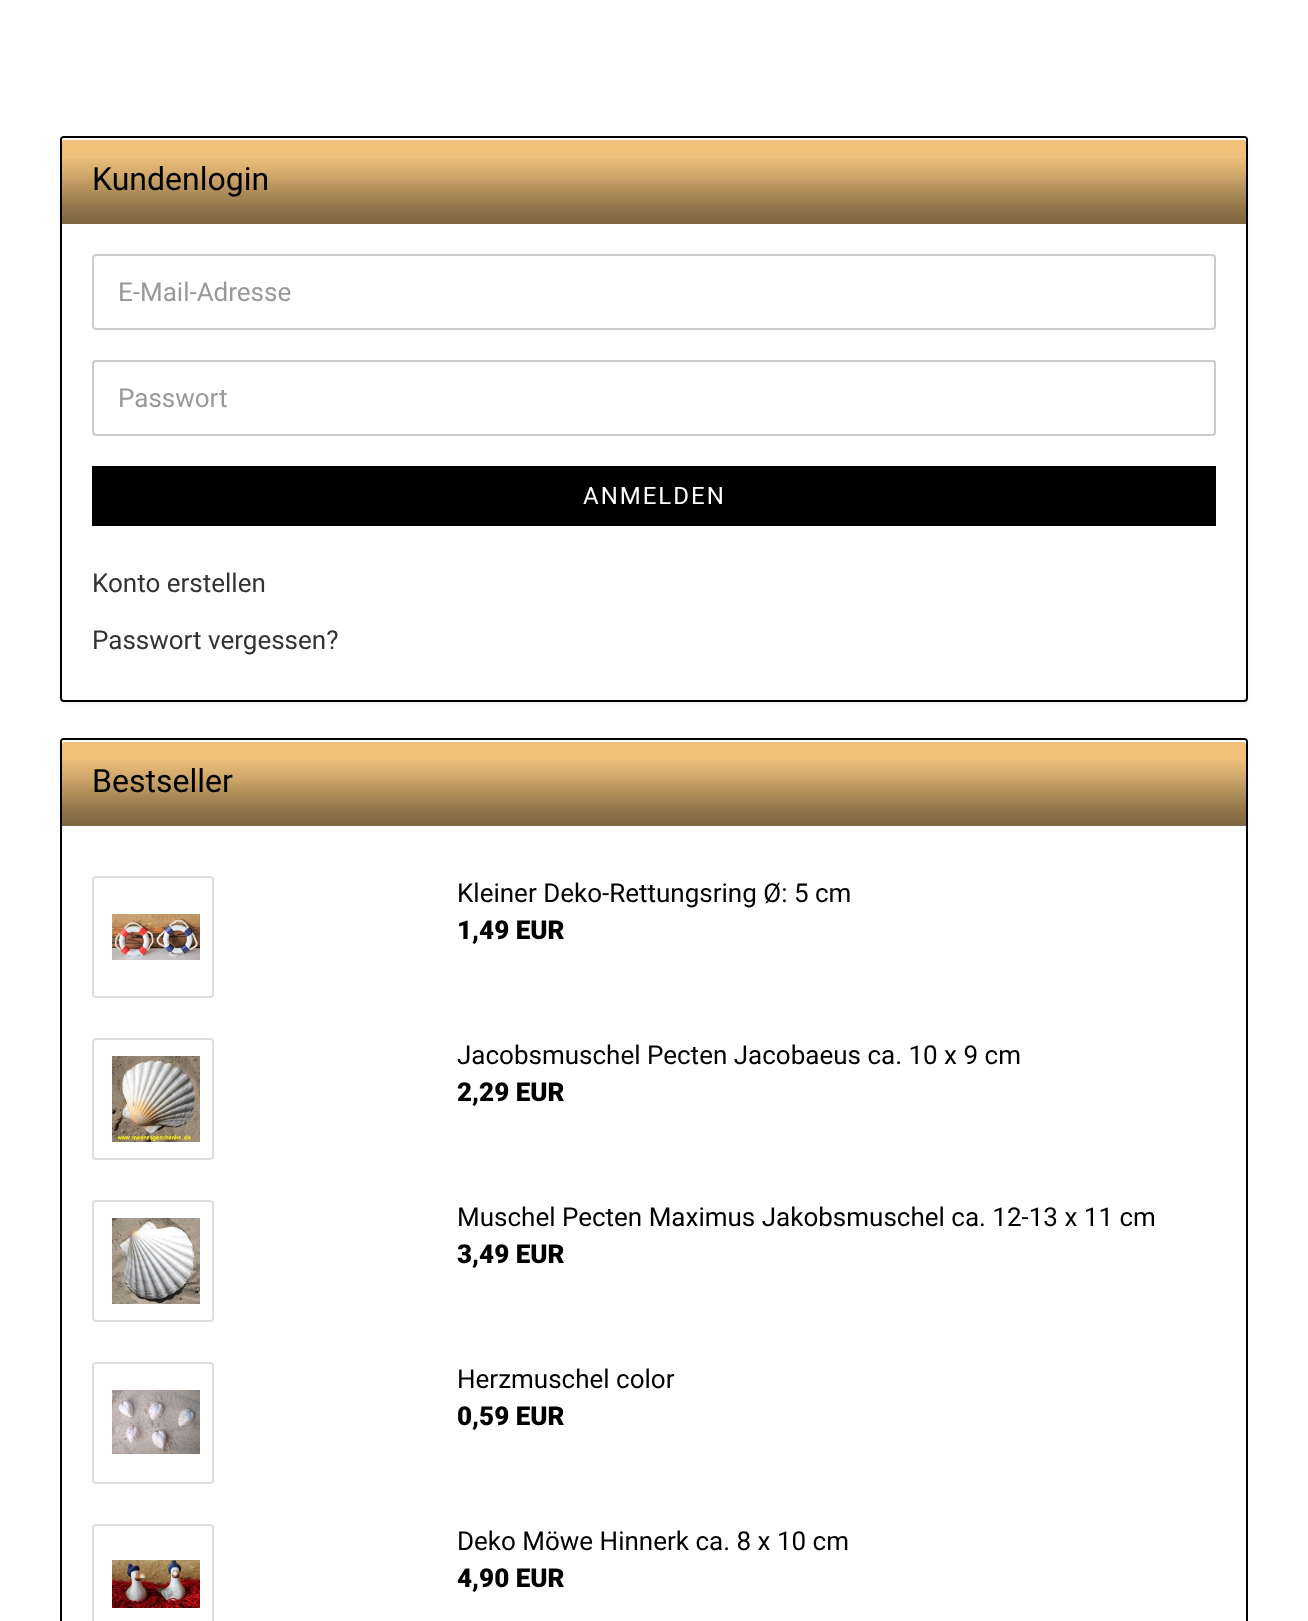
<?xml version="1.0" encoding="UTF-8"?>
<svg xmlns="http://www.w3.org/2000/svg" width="1308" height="1621">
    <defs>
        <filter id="blur1" x="-50%" y="-200%" width="200%" height="500%"><feGaussianBlur stdDeviation="1"/></filter>
    </defs>
    <rect width="100%" height="100%" fill="#FFFFFF"/>
    <rect x="60" y="138" width="1188" height="566" rx="4" fill="#000000" fill-opacity="0.05" filter="url(#blur1)"/>
    <rect x="61" y="137" width="1186" height="564" rx="3" fill="#FFFFFF" stroke="#000000" stroke-width="2"/>
    <path d="M 64 138 H 1244 C 1245 138 1246 139 1246 140 V 224 H 62 V 140 C 62 139 63 138 64 138 Z" fill="#EFC17B"/>
    <image x="62" y="158" width="1184" height="66" href="img_01.png"/>
    <path d="M 64 140 H 1244 C 1245 140 1246 141 1246 142 C 1246 140 1246 138 1244 138 H 64 L 62 139 V 142 C 62 141 63 140 64 140 Z" fill="#FFFFFF"/>
    <text x="92" y="190" font-family="Roboto" font-size="32" fill="#000000">Kundenlogin</text>
    <path d="M 62 224 H 1246 V 696 C 1246 698 1244 700 1242 700 H 66 C 64 700 62 698 62 696 Z" fill="#FFFFFF"/>
    <rect x="93" y="255" width="1122" height="74" rx="3" fill="none" stroke="#CCCCCC" stroke-width="2"/>
    <text x="118" y="301" font-family="Roboto" font-size="26" fill="#999999">E-Mail-Adresse</text>
    <rect x="93" y="361" width="1122" height="74" rx="3" fill="none" stroke="#CCCCCC" stroke-width="2"/>
    <text x="118" y="407" font-family="Roboto" font-size="26" fill="#999999">Passwort</text>
    <rect x="92" y="466" width="1124" height="60" fill="#000000"/>
    <text x="583" y="504" font-family="Roboto" font-size="24" letter-spacing="2" fill="#FFFFFF">ANMELDEN</text>
    <text x="92" y="592" font-family="Roboto" font-size="26" fill="#333333">Konto erstellen</text>
    <text x="92" y="649" font-family="Roboto" font-size="26" fill="#333333">Passwort vergessen?</text>
    <rect x="61" y="739" width="1186" height="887" rx="3" fill="none" stroke="#000000" stroke-width="2"/>
    <path d="M 64 740 H 1244 C 1245 740 1246 741 1246 742 V 826 H 62 V 742 C 62 741 63 740 64 740 Z" fill="#EFC17B"/>
    <image x="62" y="760" width="1184" height="66" href="img_01.png"/>
    <path d="M 64 742 H 1244 C 1245 742 1246 743 1246 744 C 1246 742 1246 740 1244 740 H 64 L 62 741 V 744 C 62 743 63 742 64 742 Z" fill="#FFFFFF"/>
    <text x="92" y="792" font-family="Roboto" font-size="32" fill="#000000">Bestseller</text>
    <rect x="93" y="877" width="120" height="120" rx="3" fill="none" stroke="#DDDDDD" stroke-width="2"/>
    <image x="112" y="914" width="88" height="46" href="img_02.png"/>
    <text x="457" y="902" font-family="Roboto" font-size="26" fill="#000000">Kleiner Deko-Rettungsring Ø: 5 cm</text>
    <text x="457" y="939" font-family="Roboto" font-size="26" font-weight="900" fill="#000000">1,49 EUR</text>
    <rect x="93" y="1039" width="120" height="120" rx="3" fill="none" stroke="#DDDDDD" stroke-width="2"/>
    <image x="112" y="1056" width="88" height="86" href="img_03.png"/>
    <text x="457" y="1064" font-family="Roboto" font-size="26" fill="#000000">Jacobsmuschel Pecten Jacobaeus ca. 10 x 9 cm</text>
    <text x="457" y="1101" font-family="Roboto" font-size="26" font-weight="900" fill="#000000">2,29 EUR</text>
    <rect x="93" y="1201" width="120" height="120" rx="3" fill="none" stroke="#DDDDDD" stroke-width="2"/>
    <image x="112" y="1218" width="88" height="86" href="img_04.png"/>
    <text x="457" y="1226" font-family="Roboto" font-size="26" fill="#000000">Muschel Pecten Maximus Jakobsmuschel ca. 12-13 x 11 cm</text>
    <text x="457" y="1263" font-family="Roboto" font-size="26" font-weight="900" fill="#000000">3,49 EUR</text>
    <rect x="93" y="1363" width="120" height="120" rx="3" fill="none" stroke="#DDDDDD" stroke-width="2"/>
    <image x="112" y="1390" width="88" height="64" href="img_05.png"/>
    <text x="457" y="1388" font-family="Roboto" font-size="26" fill="#000000">Herzmuschel color</text>
    <text x="457" y="1425" font-family="Roboto" font-size="26" font-weight="900" fill="#000000">0,59 EUR</text>
    <rect x="93" y="1525" width="120" height="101" rx="3" fill="none" stroke="#DDDDDD" stroke-width="2"/>
    <image x="112" y="1560" width="88" height="48" href="img_06.png"/>
    <text x="457" y="1550" font-family="Roboto" font-size="26" fill="#000000">Deko Möwe Hinnerk ca. 8 x 10 cm</text>
    <text x="457" y="1587" font-family="Roboto" font-size="26" font-weight="900" fill="#000000">4,90 EUR</text>
</svg>
